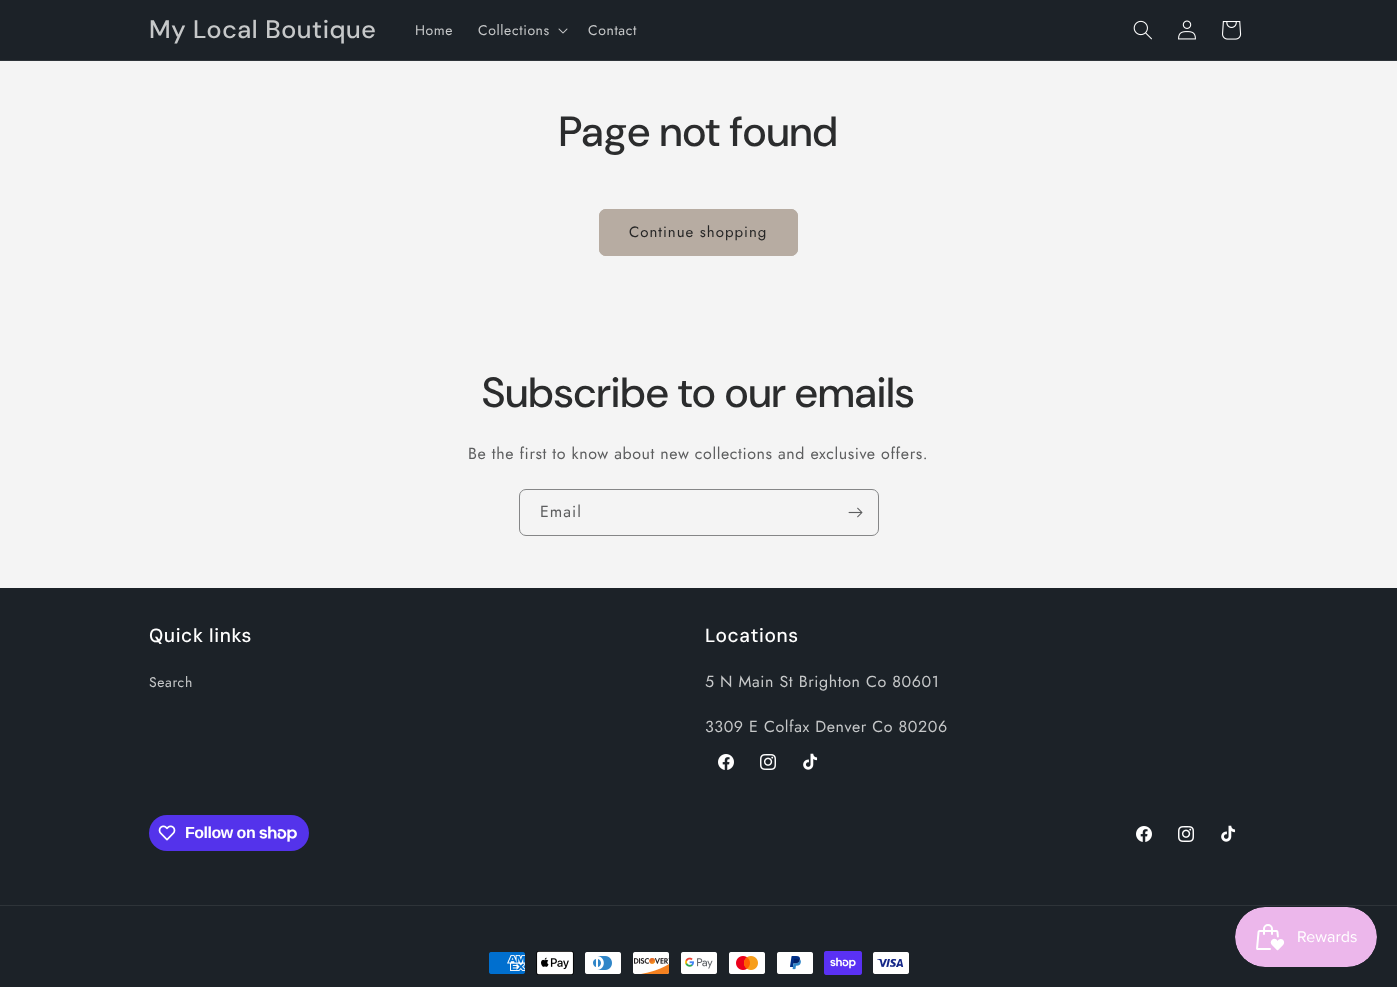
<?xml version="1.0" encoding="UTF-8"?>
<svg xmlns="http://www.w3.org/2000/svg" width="1397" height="987">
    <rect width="100%" height="100%" fill="#F4F4F4"/>
    <rect x="0" y="0" width="1397" height="60" fill="#1C2228"/>
    <rect x="0" y="60" width="1397" height="1" fill="#2E3439"/>
    <text x="149" y="38" font-family="'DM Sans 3'" font-size="25.25" font-weight="500" letter-spacing="0.6" fill="#C6C8C9">My Local Boutique</text>
    <text x="415" y="35" font-family="Jost" font-size="14" letter-spacing="0.6" fill="#C6C8C9">Home</text>
    <text x="478" y="35" font-family="Jost" font-size="14" letter-spacing="0.6" fill="#C6C8C9">Collections</text>
    <image x="558" y="28" width="10" height="6" href="img_01.png"/>
    <text x="588" y="35" font-family="Jost" font-size="14" letter-spacing="0.6" fill="#C6C8C9">Contact</text>
    <image x="1133" y="20" width="19" height="20" href="img_02.png"/>
    <image x="1178" y="20" width="18" height="20" href="img_03.png"/>
    <image x="1222" y="21" width="20" height="19" href="img_04.png"/>
    <text x="559" y="146" font-family="DM Sans" font-size="42" font-weight="500" letter-spacing="0.6" fill="#2B2C2D">Page not found</text>
    <rect x="599" y="209" width="199" height="47" rx="7" fill="#B7ACA2"/>
    <rect x="599.5" y="209.5" width="198" height="46" rx="6.5" fill="none" stroke="#B7ACA2"/>
    <text x="629" y="237" font-family="Jost" font-size="15" letter-spacing="1" fill="#262626">Continue shopping</text>
    <text x="482" y="407" font-family="DM Sans" font-size="42" font-weight="500" letter-spacing="0.6" fill="#2B2C2D">Subscribe to our emails</text>
    <text x="468" y="459" font-family="Jost" font-size="16" letter-spacing="0.6" fill="#5D5E5F">Be the first to know about new collections and exclusive offers.</text>
    <rect x="519.5" y="489.5" width="359" height="46" rx="6.5" fill="none" stroke="#858687"/>
    <text x="540" y="517" font-family="Jost" font-size="16" letter-spacing="1" fill="#5D5E5F">Email</text>
    <image x="848" y="507" width="15" height="11" href="img_05.png"/>
    <rect x="0" y="588" width="1397" height="399" fill="#1C2228"/>
    <text x="149" y="642" font-family="'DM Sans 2'" font-size="19" font-weight="500" letter-spacing="0.6" fill="#FFFFFF">Quick links</text>
    <text x="149" y="687" font-family="Jost" font-size="14" letter-spacing="0.6" fill="#C6C8C9">Search</text>
    <text x="705" y="642" font-family="'DM Sans 2'" font-size="19" font-weight="500" letter-spacing="0.6" fill="#FFFFFF">Locations</text>
    <text x="705" y="687" font-family="Jost" font-size="16" letter-spacing="0.6" fill="#C6C8C9">5 N Main St Brighton Co 80601</text>
    <text x="705" y="732" font-family="Jost" font-size="16" letter-spacing="0.6" fill="#C6C8C9">3309 E Colfax Denver Co 80206</text>
    <image x="718" y="754" width="16" height="16" href="img_06.png"/>
    <image x="760" y="754" width="16" height="16" href="img_07.png"/>
    <image x="803" y="753" width="15" height="17" href="img_08.png"/>
    <rect x="149" y="815" width="160" height="36" rx="18" fill="#5433EB"/>
    <image x="158" y="825" width="18" height="16" href="img_09.png"/>
    <text x="185" y="838" font-family="Liberation Sans" font-size="16" font-weight="700" letter-spacing="-0.5" fill="#FFFFFF">Follow on</text>
    <image x="259" y="826" width="38" height="16" href="img_10.png"/>
    <image x="1136" y="826" width="16" height="16" href="img_06.png"/>
    <image x="1178" y="826" width="16" height="16" href="img_07.png"/>
    <image x="1221" y="825" width="15" height="17" href="img_08.png"/>
    <rect x="0" y="905" width="1397" height="1" fill="#2E3439"/>
    <image x="489" y="952" width="36" height="22" href="img_11.png"/>
    <image x="536" y="951" width="38" height="24" href="img_12.png"/>
    <image x="585" y="952" width="36" height="22" href="img_13.png"/>
    <image x="633" y="952" width="36" height="22" href="img_14.png"/>
    <image x="681" y="952" width="36" height="22" href="img_15.png"/>
    <image x="729" y="952" width="36" height="22" href="img_16.png"/>
    <image x="777" y="952" width="36" height="22" href="img_17.png"/>
    <image x="824" y="951" width="38" height="24" href="img_18.png"/>
    <image x="873" y="952" width="36" height="22" href="img_19.png"/>
    <image x="1235" y="907" width="142" height="60" href="img_20.png"/>
</svg>
